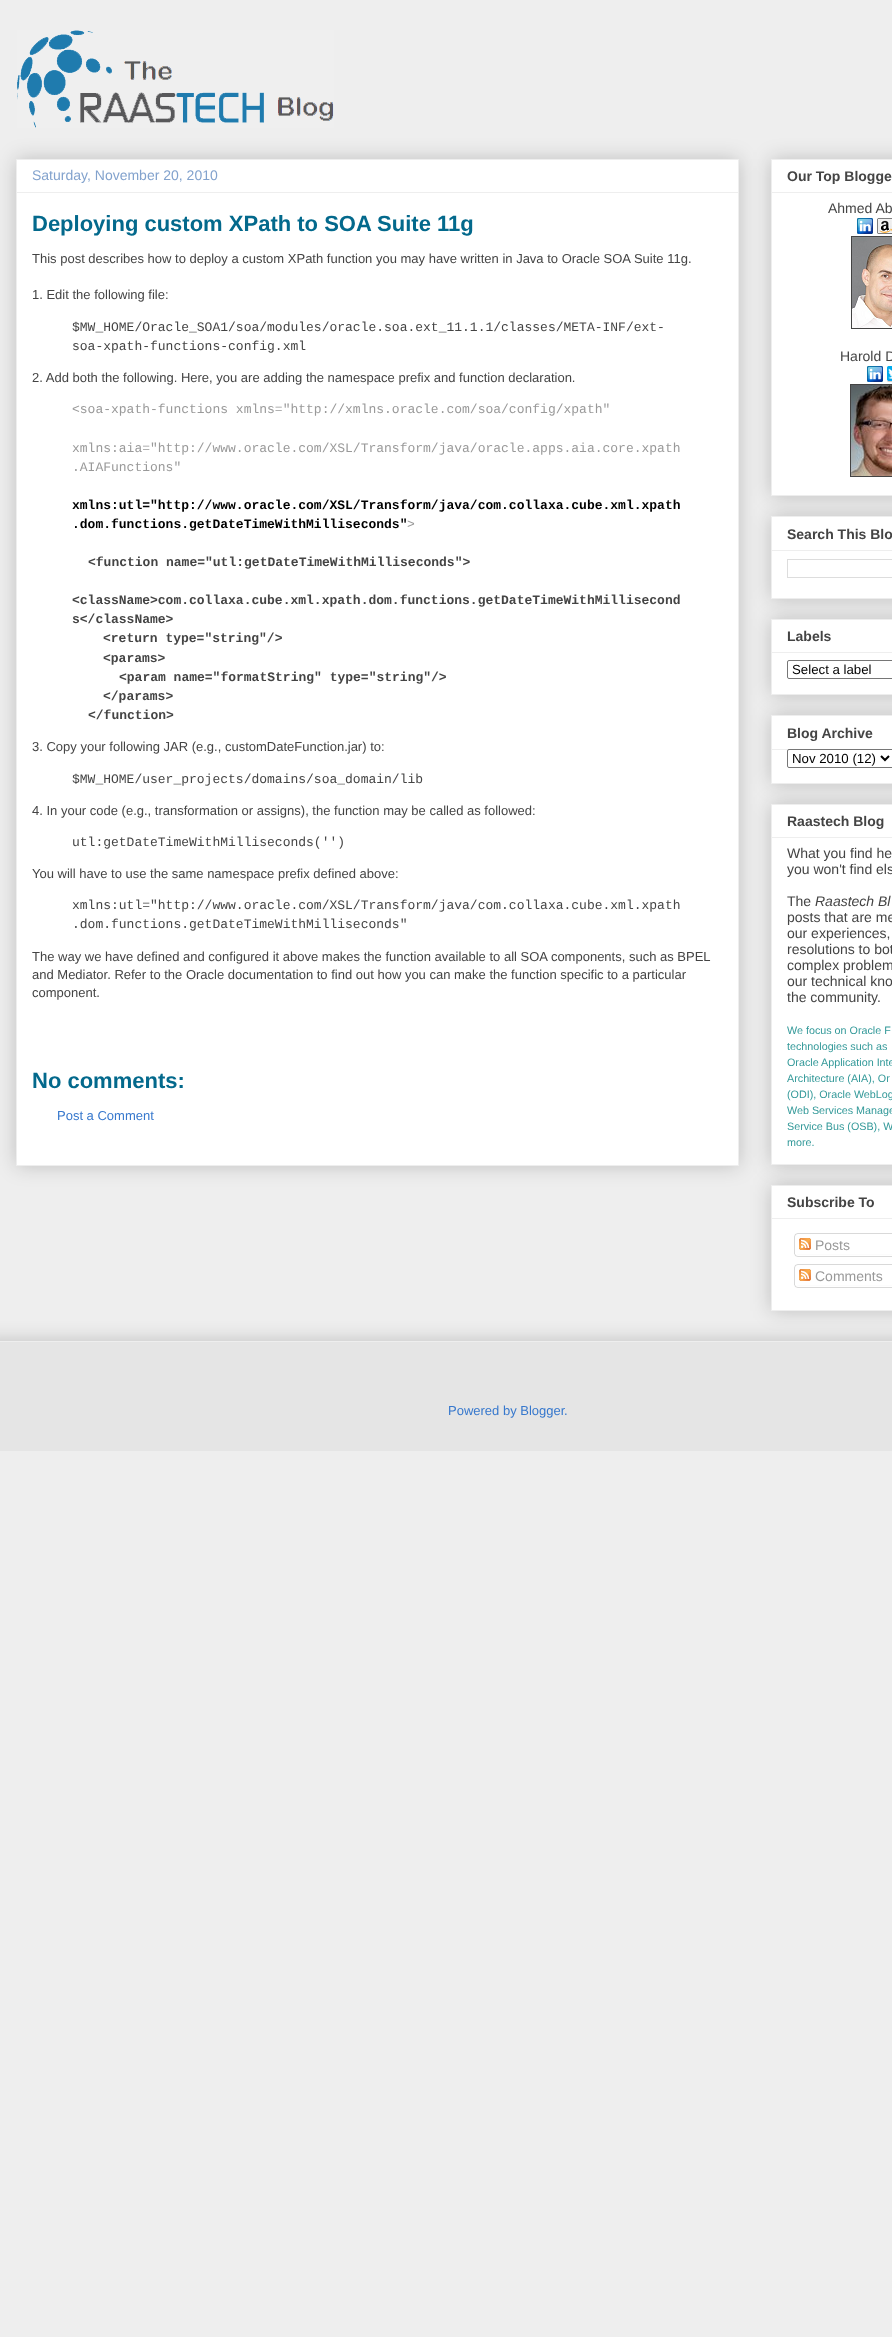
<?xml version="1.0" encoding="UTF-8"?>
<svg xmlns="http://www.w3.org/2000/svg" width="892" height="2337">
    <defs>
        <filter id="blur1" x="-50%" y="-200%" width="200%" height="500%"><feGaussianBlur stdDeviation="10"/></filter>
        <clipPath id="clip1"><rect x="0" y="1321" width="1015" height="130"/></clipPath>
    </defs>
    <rect width="100%" height="100%" fill="#EEEEEE"/>
    <image x="17" y="30" width="317" height="98" href="img_01.png"/>
    <rect x="16" y="159" width="723" height="1007" fill="#000000" fill-opacity="0.2" filter="url(#blur1)"/>
    <rect x="16.5" y="159.5" width="722" height="1006" fill="#FFFFFF" stroke="#EEEEEE"/>
    <text x="32" y="180" font-family="Liberation Sans" font-size="14" fill="#82A2CD">Saturday, November 20, 2010</text>
    <rect x="17" y="192" width="721" height="1" fill="#EEEEEE"/>
    <text x="32" y="231" font-family="Liberation Sans" font-size="22" font-weight="700" fill="#03698C">Deploying custom XPath to SOA Suite 11g</text>
    <text x="32" y="263" font-family="Liberation Sans" font-size="13" fill="#444444">This post describes how to deploy a custom XPath function you may have written in Java to Oracle SOA Suite 11g.</text>
    <text x="32" y="299" font-family="Liberation Sans" font-size="13" fill="#444444">1. Edit the following file:</text>
    <text font-family="Liberation Mono" font-size="13" fill="#444444">
        <tspan x="72" y="331">$MW_HOME/Oracle_SOA1/soa/modules/oracle.soa.ext_11.1.1/classes/META-INF/ext-</tspan>
        <tspan x="72" y="350">soa-xpath-functions-config.xml</tspan>
    </text>
    <text x="32" y="382" font-family="Liberation Sans" font-size="13" fill="#444444">2. Add both the following. Here, you are adding the namespace prefix and function declaration.</text>
    <text x="72" y="413" font-family="Liberation Mono" font-size="13" fill="#999999">&lt;soa-xpath-functions xmlns="http://xmlns.oracle.com/soa/config/xpath"</text>
    <text font-family="Liberation Mono" font-size="13" fill="#999999">
        <tspan x="72" y="452">xmlns:aia="http://www.oracle.com/XSL/Transform/java/oracle.apps.aia.core.xpath</tspan>
        <tspan x="72" y="471">.AIAFunctions"</tspan>
    </text>
    <text font-family="Liberation Mono" font-size="13" font-weight="700" fill="#000000">
        <tspan x="72" y="509">xmlns:utl="http://www.oracle.com/XSL/Transform/java/com.collaxa.cube.xml.xpath</tspan>
        <tspan x="72" y="528">.dom.functions.getDateTimeWithMilliseconds"</tspan>
    </text>
    <text x="407" y="528" font-family="Liberation Mono" font-size="13" fill="#999999">&gt;</text>
    <text x="88" y="566" font-family="Liberation Mono" font-size="13" font-weight="700" fill="#444444">&lt;function name="utl:getDateTimeWithMilliseconds"&gt;</text>
    <text font-family="Liberation Mono" font-size="13" font-weight="700" fill="#444444">
        <tspan x="72" y="604">&lt;className&gt;com.collaxa.cube.xml.xpath.dom.functions.getDateTimeWithMillisecond</tspan>
        <tspan x="72" y="623">s&lt;/className&gt;</tspan>
    </text>
    <text font-family="Liberation Mono" font-size="13" font-weight="700" fill="#444444">
        <tspan x="103" y="642">&lt;return type="string"/&gt;</tspan>
        <tspan x="103" y="662">&lt;params&gt;</tspan>
    </text>
    <text x="119" y="681" font-family="Liberation Mono" font-size="13" font-weight="700" fill="#444444">&lt;param name="formatString" type="string"/&gt;</text>
    <text x="103" y="700" font-family="Liberation Mono" font-size="13" font-weight="700" fill="#444444">&lt;/params&gt;</text>
    <text x="88" y="719" font-family="Liberation Mono" font-size="13" font-weight="700" fill="#444444">&lt;/function&gt;</text>
    <text x="32" y="751" font-family="Liberation Sans" font-size="13" fill="#444444">3. Copy your following JAR (e.g., customDateFunction.jar) to:</text>
    <text x="72" y="783" font-family="Liberation Mono" font-size="13" fill="#444444">$MW_HOME/user_projects/domains/soa_domain/lib</text>
    <text x="32" y="815" font-family="Liberation Sans" font-size="13" fill="#444444">4. In your code (e.g., transformation or assigns), the function may be called as followed:</text>
    <text x="72" y="846" font-family="Liberation Mono" font-size="13" fill="#444444">utl:getDateTimeWithMilliseconds('')</text>
    <text x="32" y="878" font-family="Liberation Sans" font-size="13" fill="#444444">You will have to use the same namespace prefix defined above:</text>
    <text font-family="Liberation Mono" font-size="13" fill="#444444">
        <tspan x="72" y="909">xmlns:utl="http://www.oracle.com/XSL/Transform/java/com.collaxa.cube.xml.xpath</tspan>
        <tspan x="72" y="928">.dom.functions.getDateTimeWithMilliseconds"</tspan>
    </text>
    <text font-family="Liberation Sans" font-size="13" fill="#444444">
        <tspan x="32" y="961">The way we have defined and configured it above makes the function available to all SOA components, such as BPEL</tspan>
        <tspan x="32" y="979">and Mediator. Refer to the Oracle documentation to find out how you can make the function specific to a particular</tspan>
        <tspan x="32" y="997">component.</tspan>
    </text>
    <text x="32" y="1088" font-family="Liberation Sans" font-size="22" font-weight="700" fill="#03698C">No comments:</text>
    <text x="57" y="1120" font-family="Liberation Sans" font-size="13" fill="#3778CD">Post a Comment</text>
    <rect x="771" y="159" width="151" height="337" fill="#000000" fill-opacity="0.2" filter="url(#blur1)"/>
    <rect x="771.5" y="159.5" width="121" height="336" fill="#FFFFFF" stroke="#EEEEEE"/>
    <text x="787" y="181" font-family="Liberation Sans" font-size="14" font-weight="700" fill="#444444">Our Top Blogge</text>
    <rect x="772" y="192" width="120" height="1" fill="#EEEEEE"/>
    <text x="828" y="213" font-family="Liberation Sans" font-size="14" fill="#444444">Ahmed Ab</text>
    <image x="857" y="218" width="16" height="16" href="img_02.png"/>
    <image x="877" y="218" width="15" height="16" href="img_03.png"/>
    <rect x="851.5" y="236.5" width="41" height="92" fill="none" stroke="#444444"/>
    <image x="852" y="237" width="40" height="91" href="img_04.png"/>
    <text x="840" y="361" font-family="Liberation Sans" font-size="14" fill="#444444">Harold D</text>
    <image x="867" y="366" width="16" height="16" href="img_02.png"/>
    <image x="887" y="366" width="5" height="16" href="img_05.png"/>
    <rect x="850.5" y="384.5" width="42" height="92" fill="none" stroke="#444444"/>
    <image x="851" y="385" width="41" height="91" href="img_06.png"/>
    <rect x="771" y="516" width="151" height="83" fill="#000000" fill-opacity="0.2" filter="url(#blur1)"/>
    <rect x="771.5" y="516.5" width="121" height="82" fill="#FFFFFF" stroke="#EEEEEE"/>
    <text x="787" y="539" font-family="Liberation Sans" font-size="14" font-weight="700" fill="#444444">Search This Blo</text>
    <rect x="772" y="550" width="120" height="1" fill="#EEEEEE"/>
    <rect x="787.5" y="559.5" width="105" height="18" fill="none" stroke="#DDDDDD"/>
    <rect x="771" y="619" width="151" height="76" fill="#000000" fill-opacity="0.2" filter="url(#blur1)"/>
    <rect x="771.5" y="619.5" width="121" height="75" fill="#FFFFFF" stroke="#EEEEEE"/>
    <text x="787" y="641" font-family="Liberation Sans" font-size="14" font-weight="700" fill="#444444">Labels</text>
    <rect x="772" y="652" width="120" height="1" fill="#EEEEEE"/>
    <rect x="787.5" y="660.5" width="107" height="18" rx="1.5" fill="none" stroke="#767676"/>
    <text x="792" y="674" font-family="Liberation Sans" font-size="13.25" fill="#000000">Select a label</text>
    <rect x="771" y="715" width="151" height="69" fill="#000000" fill-opacity="0.2" filter="url(#blur1)"/>
    <rect x="771.5" y="715.5" width="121" height="68" fill="#FFFFFF" stroke="#EEEEEE"/>
    <text x="787" y="738" font-family="Liberation Sans" font-size="14" font-weight="700" fill="#444444">Blog Archive</text>
    <rect x="772" y="749" width="17" height="1" fill="#EEEEEE"/>
    <rect x="787.5" y="749.5" width="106" height="18" rx="1.5" fill="#FFFFFF" stroke="#767676"/>
    <path d="M 881 756 L 885 760 L 889 756" fill="none" stroke="#000000" stroke-width="2"/>
    <text x="792" y="763" font-family="Liberation Sans" font-size="13.25" fill="#000000">Nov 2010 (12)</text>
    <rect x="771" y="1185" width="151" height="126" fill="#000000" fill-opacity="0.2" filter="url(#blur1)"/>
    <rect x="771.5" y="1185.5" width="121" height="125" fill="#FFFFFF" stroke="#EEEEEE"/>
    <rect x="771" y="804" width="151" height="361" fill="#000000" fill-opacity="0.2" filter="url(#blur1)"/>
    <rect x="771.5" y="804.5" width="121" height="360" fill="#FFFFFF" stroke="#EEEEEE"/>
    <text x="787" y="826" font-family="Liberation Sans" font-size="14" font-weight="700" fill="#444444">Raastech Blog</text>
    <rect x="772" y="837" width="120" height="1" fill="#EEEEEE"/>
    <text font-family="Liberation Sans" font-size="14" fill="#444444">
        <tspan x="787" y="858">What you find he</tspan>
        <tspan x="787" y="874">you won't find els</tspan>
    </text>
    <text x="787" y="906" font-family="Liberation Sans" font-size="14" fill="#444444">The</text>
    <text x="815" y="906" font-family="Liberation Sans" font-size="14" font-style="italic" fill="#444444">Raastech Bl</text>
    <text font-family="Liberation Sans" font-size="14" fill="#444444">
        <tspan x="787" y="922">posts that are me</tspan>
        <tspan x="787" y="938">our experiences,</tspan>
        <tspan x="787" y="954">resolutions to bot</tspan>
        <tspan x="787" y="970">complex problem</tspan>
        <tspan x="787" y="986">our technical kno</tspan>
        <tspan x="787" y="1002">the community.</tspan>
    </text>
    <text font-family="Liberation Sans" font-size="10.75" fill="#339999">
        <tspan x="787" y="1034">We focus on Oracle F</tspan>
        <tspan x="787" y="1050">technologies such as</tspan>
        <tspan x="787" y="1066">Oracle Application Inte</tspan>
        <tspan x="787" y="1082">Architecture (AIA), Or</tspan>
        <tspan x="787" y="1098">(ODI), Oracle WebLog</tspan>
        <tspan x="787" y="1114">Web Services Manage</tspan>
        <tspan x="787" y="1130">Service Bus (OSB), W</tspan>
        <tspan x="787" y="1146">more.</tspan>
    </text>
    <text x="787" y="1207" font-family="Liberation Sans" font-size="14" font-weight="700" fill="#444444">Subscribe To</text>
    <rect x="772" y="1218" width="120" height="1" fill="#EEEEEE"/>
    <image x="794" y="1233" width="98" height="21" href="img_07.png"/>
    <image x="799" y="1238" width="12" height="12" href="img_08.png"/>
    <text x="815" y="1250" font-family="Liberation Sans" font-size="14" fill="#999999">Posts</text>
    <image x="794" y="1254" width="98" height="3" href="img_09.png"/>
    <image x="794" y="1264" width="98" height="21" href="img_07.png"/>
    <image x="799" y="1269" width="12" height="12" href="img_08.png"/>
    <text x="815" y="1281" font-family="Liberation Sans" font-size="14" fill="#999999">Comments</text>
    <image x="794" y="1285" width="98" height="3" href="img_09.png"/>
    <g clip-path="url(#clip1)">
        <rect x="-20" y="1341" width="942" height="110" fill="#000000" fill-opacity="0.2" filter="url(#blur1)"/>
    </g>
    <rect x="0" y="1342" width="892" height="109" fill="#E5E5E5"/>
    <rect x="0" y="1341" width="892" height="1" fill="#EEEEEE"/>
    <text x="448" y="1415" font-family="Liberation Sans" font-size="13" fill="#3778CD">Powered by Blogger</text>
    <text x="564" y="1415" font-family="Liberation Sans" font-size="13" fill="#3778CD">.</text>
</svg>
